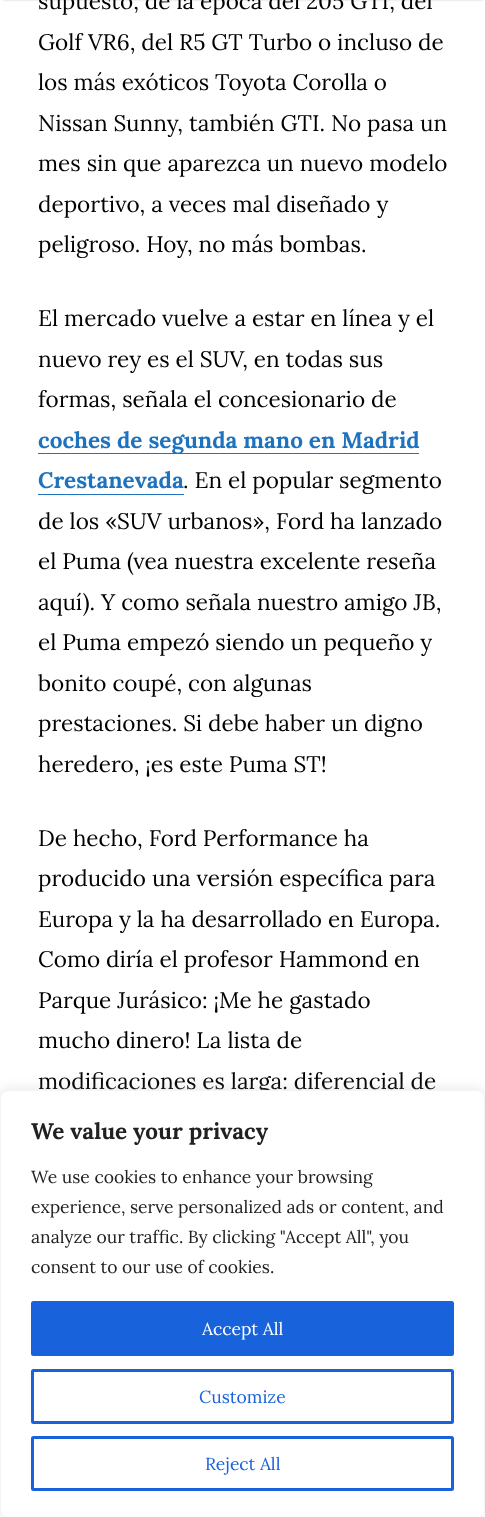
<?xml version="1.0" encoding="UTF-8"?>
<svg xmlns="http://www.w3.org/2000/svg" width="485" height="1517">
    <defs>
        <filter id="blur1" x="-50%" y="-200%" width="200%" height="500%"><feGaussianBlur stdDeviation="1"/></filter>
        <filter id="blur2" x="-50%" y="-200%" width="200%" height="500%"><feGaussianBlur stdDeviation="6"/></filter>
    </defs>
    <rect width="100%" height="100%" fill="#FFFFFF"/>
    <rect x="3" y="-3" width="480" height="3" fill="#000000" fill-opacity="0.2" filter="url(#blur1)"/>
    <text font-family="Lora" font-size="22.5" fill="#000000">
        <tspan x="38" y="9">supuesto, de la época del 205 GTI, del</tspan>
        <tspan x="38" y="50">Golf VR6, del R5 GT Turbo o incluso de</tspan>
        <tspan x="38" y="90">los más exóticos Toyota Corolla o</tspan>
        <tspan x="38" y="131">Nissan Sunny, también GTI. No pasa un</tspan>
        <tspan x="38" y="171">mes sin que aparezca un nuevo modelo</tspan>
        <tspan x="38" y="212">deportivo, a veces mal diseñado y</tspan>
        <tspan x="38" y="252">peligroso. Hoy, no más bombas.</tspan>
    </text>
    <text font-family="Lora" font-size="22.5" fill="#000000">
        <tspan x="38" y="326">El mercado vuelve a estar en línea y el</tspan>
        <tspan x="38" y="367">nuevo rey es el SUV, en todas sus</tspan>
        <tspan x="38" y="407">formas, señala el concesionario de</tspan>
    </text>
    <rect x="38" y="453" width="381" height="1" fill="#1E73BE"/>
    <text font-family="Lora" font-size="22.5" font-weight="700" fill="#1E73BE">
        <tspan x="38" y="448">coches de segunda mano en Madrid</tspan>
        <tspan x="38" y="488">Crestanevada</tspan>
    </text>
    <rect x="38" y="494" width="146" height="1" fill="#1E73BE"/>
    <text x="183" y="488" font-family="Lora" font-size="22.5" fill="#000000">. En el popular segmento</text>
    <text font-family="Lora" font-size="22.5" fill="#000000">
        <tspan x="38" y="529">de los «SUV urbanos», Ford ha lanzado</tspan>
        <tspan x="38" y="569">el Puma (vea nuestra excelente reseña</tspan>
        <tspan x="38" y="610">aquí). Y como señala nuestro amigo JB,</tspan>
        <tspan x="38" y="650">el Puma empezó siendo un pequeño y</tspan>
        <tspan x="38" y="691">bonito coupé, con algunas</tspan>
        <tspan x="38" y="731">prestaciones. Si debe haber un digno</tspan>
        <tspan x="38" y="772">heredero, ¡es este Puma ST!</tspan>
    </text>
    <text font-family="Lora" font-size="22.5" fill="#000000">
        <tspan x="38" y="846">De hecho, Ford Performance ha</tspan>
        <tspan x="38" y="886">producido una versión específica para</tspan>
        <tspan x="38" y="927">Europa y la ha desarrollado en Europa.</tspan>
        <tspan x="38" y="967">Como diría el profesor Hammond en</tspan>
        <tspan x="38" y="1008">Parque Jurásico: ¡Me he gastado</tspan>
        <tspan x="38" y="1048">mucho dinero! La lista de</tspan>
        <tspan x="38" y="1089">modificaciones es larga: diferencial de</tspan>
    </text>
    <rect x="0" y="1089" width="485" height="427" rx="8" fill="#ACABAB" fill-opacity="0.3" filter="url(#blur2)"/>
    <rect x="0.5" y="1090.5" width="484" height="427" rx="7.5" fill="#FFFFFF" stroke="#F4F4F4"/>
    <text x="31" y="1139" font-family="Lora" font-size="22.5" font-weight="700" fill="#212121">We value your privacy</text>
    <text font-family="Lora" font-size="17.5" fill="#212121">
        <tspan x="31" y="1183">We use cookies to enhance your browsing</tspan>
        <tspan x="31" y="1213">experience, serve personalized ads or content, and</tspan>
        <tspan x="31" y="1243">analyze our traffic. By clicking "Accept All", you</tspan>
        <tspan x="31" y="1273">consent to our use of cookies.</tspan>
    </text>
    <rect x="32.5" y="1302.5" width="420" height="52" rx="1" fill="#1863DC" stroke="#1863DC" stroke-width="3"/>
    <text x="202" y="1335" font-family="Lora" font-size="17.5" fill="#FFFFFF">Accept All</text>
    <rect x="32.5" y="1370.5" width="420" height="52" rx="1" fill="none" stroke="#1863DC" stroke-width="3"/>
    <text x="199" y="1403" font-family="Lora" font-size="17.5" fill="#1863DC">Customize</text>
    <rect x="32.5" y="1437.5" width="420" height="52" rx="1" fill="none" stroke="#1863DC" stroke-width="3"/>
    <text x="205" y="1470" font-family="Lora" font-size="17.5" fill="#1863DC">Reject All</text>
</svg>
